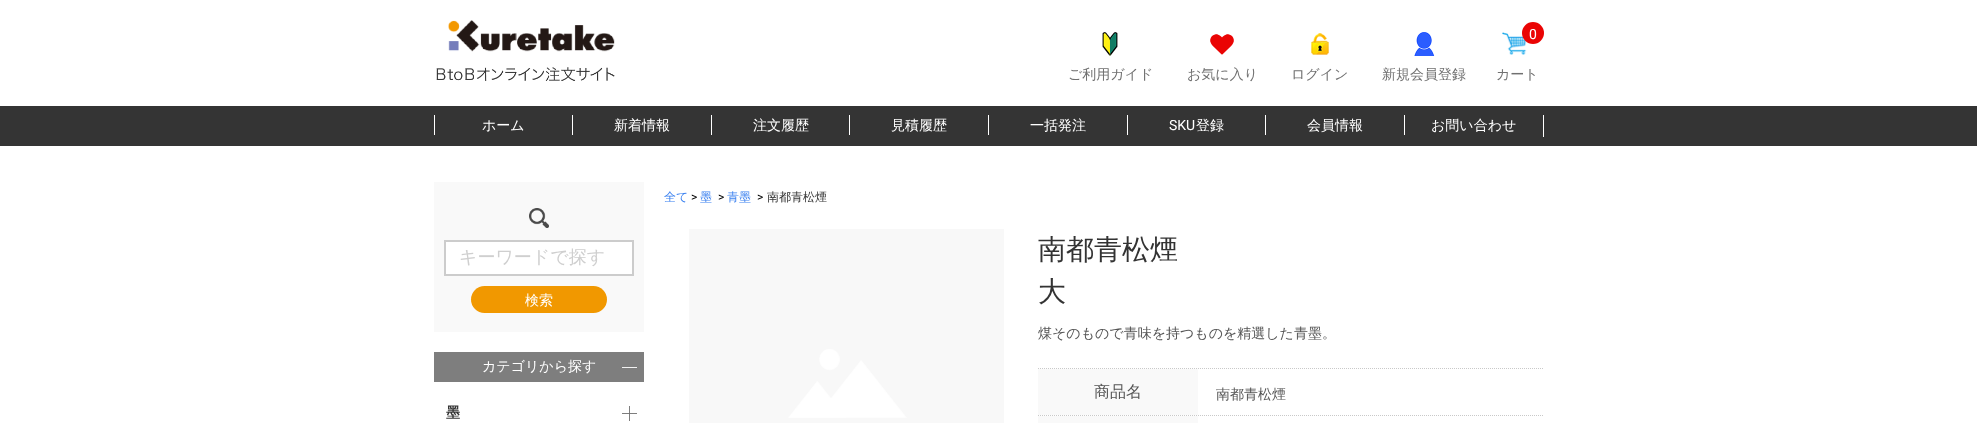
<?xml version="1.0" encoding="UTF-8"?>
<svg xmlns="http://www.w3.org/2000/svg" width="1977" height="423">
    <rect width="100%" height="100%" fill="#FFFFFF"/>
    <rect x="629" y="406" width="1" height="15" fill="#7E7E7E"/>
    <image x="436" y="20" width="179" height="61" href="img_01.png"/>
    <image x="1102" y="32" width="16" height="24" href="img_02.png"/>
    <text x="1068" y="79" font-family="WenQuanYi Zen Hei" font-size="14" font-weight="500" fill="#707070">ご利用ガイド</text>
    <image x="1210" y="34" width="24" height="21" href="img_03.png"/>
    <text x="1187" y="79" font-family="WenQuanYi Zen Hei" font-size="14" font-weight="500" fill="#707070">お気に入り</text>
    <image x="1311" y="33" width="18" height="22" href="img_04.png"/>
    <text x="1291" y="79" font-family="WenQuanYi Zen Hei" font-size="14" font-weight="500" fill="#707070">ログイン</text>
    <image x="1414" y="32" width="21" height="24" href="img_05.png"/>
    <text x="1382" y="79" font-family="WenQuanYi Zen Hei" font-size="14" font-weight="500" fill="#707070">新規会員登録</text>
    <image x="1502" y="32" width="25" height="23" href="img_06.png"/>
    <circle cx="1533" cy="33" r="11" fill="#EA0404"/>
    <text x="1529" y="39" font-family="Roboto" font-size="14" fill="#FFFFFF">0</text>
    <text x="1496" y="79" font-family="WenQuanYi Zen Hei" font-size="14" font-weight="500" fill="#707070">カート</text>
    <rect x="0" y="106" width="1977" height="40" fill="#343434"/>
    <rect x="434" y="115" width="1" height="20" fill="#FFFFFF"/>
    <text x="482" y="130" font-family="WenQuanYi Zen Hei" font-size="14" font-weight="500" fill="#FFFFFF">ホーム</text>
    <rect x="572" y="115" width="1" height="20" fill="#FFFFFF"/>
    <text x="614" y="130" font-family="WenQuanYi Zen Hei" font-size="14" font-weight="500" fill="#FFFFFF">新着情報</text>
    <rect x="711" y="115" width="1" height="20" fill="#FFFFFF"/>
    <text x="753" y="130" font-family="WenQuanYi Zen Hei" font-size="14" font-weight="500" fill="#FFFFFF">注文履歴</text>
    <rect x="849" y="115" width="1" height="20" fill="#FFFFFF"/>
    <text x="891" y="130" font-family="WenQuanYi Zen Hei" font-size="14" font-weight="500" fill="#FFFFFF">見積履歴</text>
    <rect x="988" y="115" width="1" height="20" fill="#FFFFFF"/>
    <text x="1030" y="130" font-family="WenQuanYi Zen Hei" font-size="14" font-weight="500" fill="#FFFFFF">一括発注</text>
    <rect x="1127" y="115" width="1" height="20" fill="#FFFFFF"/>
    <text x="1169" y="130" font-family="Roboto" font-size="14" fill="#FFFFFF">SKU</text>
    <text x="1196" y="130" font-family="WenQuanYi Zen Hei" font-size="14" font-weight="500" fill="#FFFFFF">登録</text>
    <rect x="1265" y="115" width="1" height="20" fill="#FFFFFF"/>
    <text x="1307" y="130" font-family="WenQuanYi Zen Hei" font-size="14" font-weight="500" fill="#FFFFFF">会員情報</text>
    <rect x="1404" y="115" width="1" height="20" fill="#FFFFFF"/>
    <text x="1431" y="130" font-family="WenQuanYi Zen Hei" font-size="14" font-weight="500" fill="#FFFFFF">お問い合わせ</text>
    <rect x="1543" y="115" width="1" height="22" fill="#FFFFFF"/>
    <rect x="434" y="182" width="210" height="150" fill="#F9F9F9"/>
    <image x="529" y="208" width="20" height="20" href="img_07.png"/>
    <rect x="445" y="241" width="188" height="34" fill="#FFFFFF" stroke="#CCCCCC" stroke-width="2"/>
    <text x="459" y="263" font-family="WenQuanYi Zen Hei" font-size="18" font-weight="500" fill="#CFCFCF">キーワードで探す</text>
    <rect x="471" y="286" width="136" height="27" rx="13.5" fill="#F19800"/>
    <text x="525" y="305" font-family="WenQuanYi Zen Hei" font-size="14" font-weight="500" fill="#FFFFFF">検索</text>
    <rect x="434" y="352" width="210" height="30" fill="#7E7E7E"/>
    <text x="482" y="371" font-family="WenQuanYi Zen Hei" font-size="14" font-weight="500" fill="#FFFFFF">カテゴリから探す</text>
    <rect x="622" y="367" width="15" height="1" fill="#F2F2F2"/>
    <text x="446" y="417" font-family="WenQuanYi Zen Hei" font-size="14" font-weight="700" fill="#333333">墨</text>
    <rect x="622" y="413" width="15" height="1" fill="#7E7E7E"/>
    <rect x="629" y="413" width="1" height="1" fill="#717171"/>
    <text x="664" y="201" font-family="WenQuanYi Zen Hei" font-size="12" font-weight="500" fill="#3C82F0">全て</text>
    <text x="691" y="201" font-family="Roboto" font-size="12" fill="#000000">&gt;</text>
    <text x="700" y="201" font-family="WenQuanYi Zen Hei" font-size="12" font-weight="500" fill="#3C82F0">墨</text>
    <text x="718" y="201" font-family="Roboto" font-size="12" fill="#000000">&gt;</text>
    <text x="727" y="201" font-family="WenQuanYi Zen Hei" font-size="12" font-weight="500" fill="#3C82F0">青墨</text>
    <text x="757" y="201" font-family="Roboto" font-size="12" fill="#000000">&gt;</text>
    <text x="767" y="201" font-family="WenQuanYi Zen Hei" font-size="12" font-weight="500" fill="#333333">南都青松煙</text>
    <image x="689" y="229" width="315" height="194" href="img_08.png"/>
    <text font-family="WenQuanYi Zen Hei" font-size="28" font-weight="500" fill="#333333">
        <tspan x="1038" y="259">南都青松煙</tspan>
        <tspan x="1038" y="301">大</tspan>
    </text>
    <text x="1038" y="338" font-family="WenQuanYi Zen Hei" font-size="14" font-weight="500" fill="#555555">煤そのもので青味を持つものを精選した青墨。</text>
    <path d="M 1038 368.5 H 1544" fill="none" stroke="#C9C9C9" stroke-dasharray="1 1"/>
    <rect x="1038" y="369" width="160" height="46" fill="#F9F9F9"/>
    <text x="1094" y="397" font-family="WenQuanYi Zen Hei" font-size="16" font-weight="500" fill="#555555">商品名</text>
    <text x="1216" y="399" font-family="WenQuanYi Zen Hei" font-size="14" font-weight="500" fill="#555555">南都青松煙</text>
    <path d="M 1038 415.5 H 1544" fill="none" stroke="#C9C9C9" stroke-dasharray="1 1"/>
    <rect x="1038" y="416" width="160" height="7" fill="#F9F9F9"/>
</svg>
